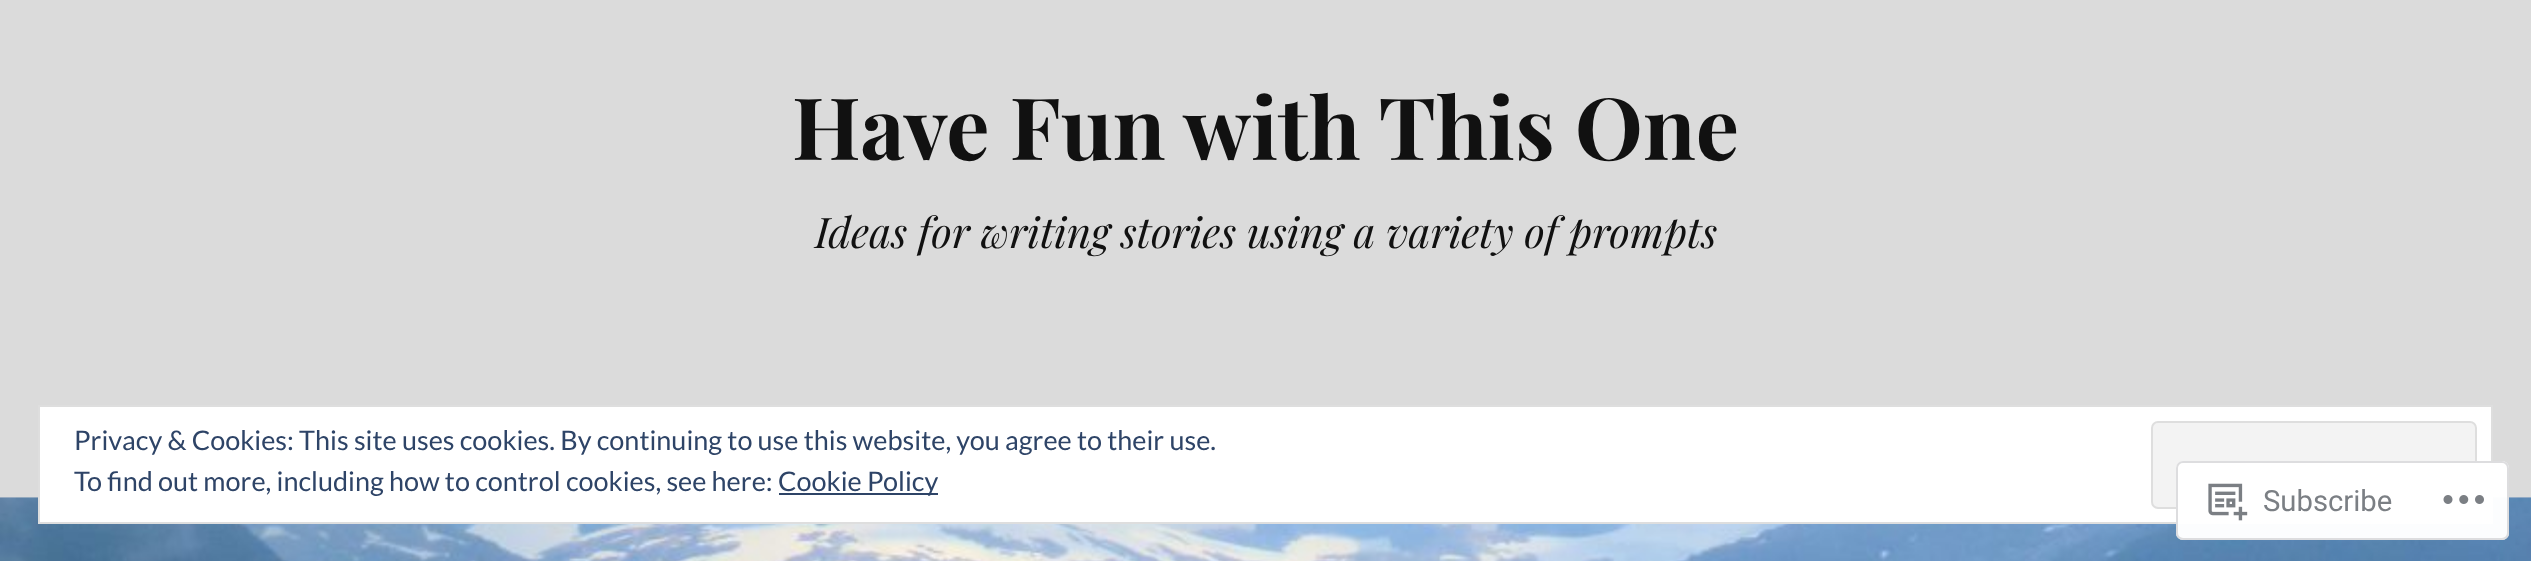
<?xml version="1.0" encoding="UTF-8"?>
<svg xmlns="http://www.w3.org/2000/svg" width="2531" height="561">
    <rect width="100%" height="100%" fill="#DBDBDB"/>
    <text x="792" y="160" font-family="Playfair Display" font-size="86" font-weight="700" fill="#111111">Have Fun with This One</text>
    <text x="815" y="248" font-family="Playfair Display" font-size="42.1" font-style="italic" fill="#111111">Ideas for writing stories using a variety of prompts</text>
    <image x="0" y="497" width="2531" height="64" href="img_01.png"/>
    <rect x="39" y="406" width="2453" height="117" fill="#FFFFFF" stroke="#DEDEDE" stroke-width="2"/>
    <text x="74" y="450" font-family="Lato" font-size="27" fill="#2E4467">Privacy &amp; Cookies: This site uses cookies. By continuing to use this website, you agree to their use.</text>
    <rect x="2152" y="422" width="324" height="86" rx="6" fill="#F3F3F3" stroke="#DEDEDE" stroke-width="2"/>
    <text x="74" y="491" font-family="Lato" font-size="27" fill="#2E4467">To find out more, including how to control cookies, see here:</text>
    <rect x="779" y="493" width="159" height="2" fill="#2E4467"/>
    <text x="778" y="491" font-family="Lato" font-size="27" fill="#2E4467">Cookie Policy</text>
    <rect x="2176" y="461" width="333" height="79" rx="7" fill="#FFFFFF" fill-opacity="0.98"/>
    <rect x="2177" y="462" width="331" height="77" rx="6" fill="none" stroke="#DCDCDE" stroke-opacity="0.98" stroke-width="2"/>
    <image x="2208" y="483" width="40" height="38" href="img_02.png"/>
    <text x="2263" y="511" font-family="Roboto" font-size="29.25" fill="#7B7F84">Subscribe</text>
    <image x="2443" y="495" width="41" height="9" href="img_03.png"/>
</svg>
